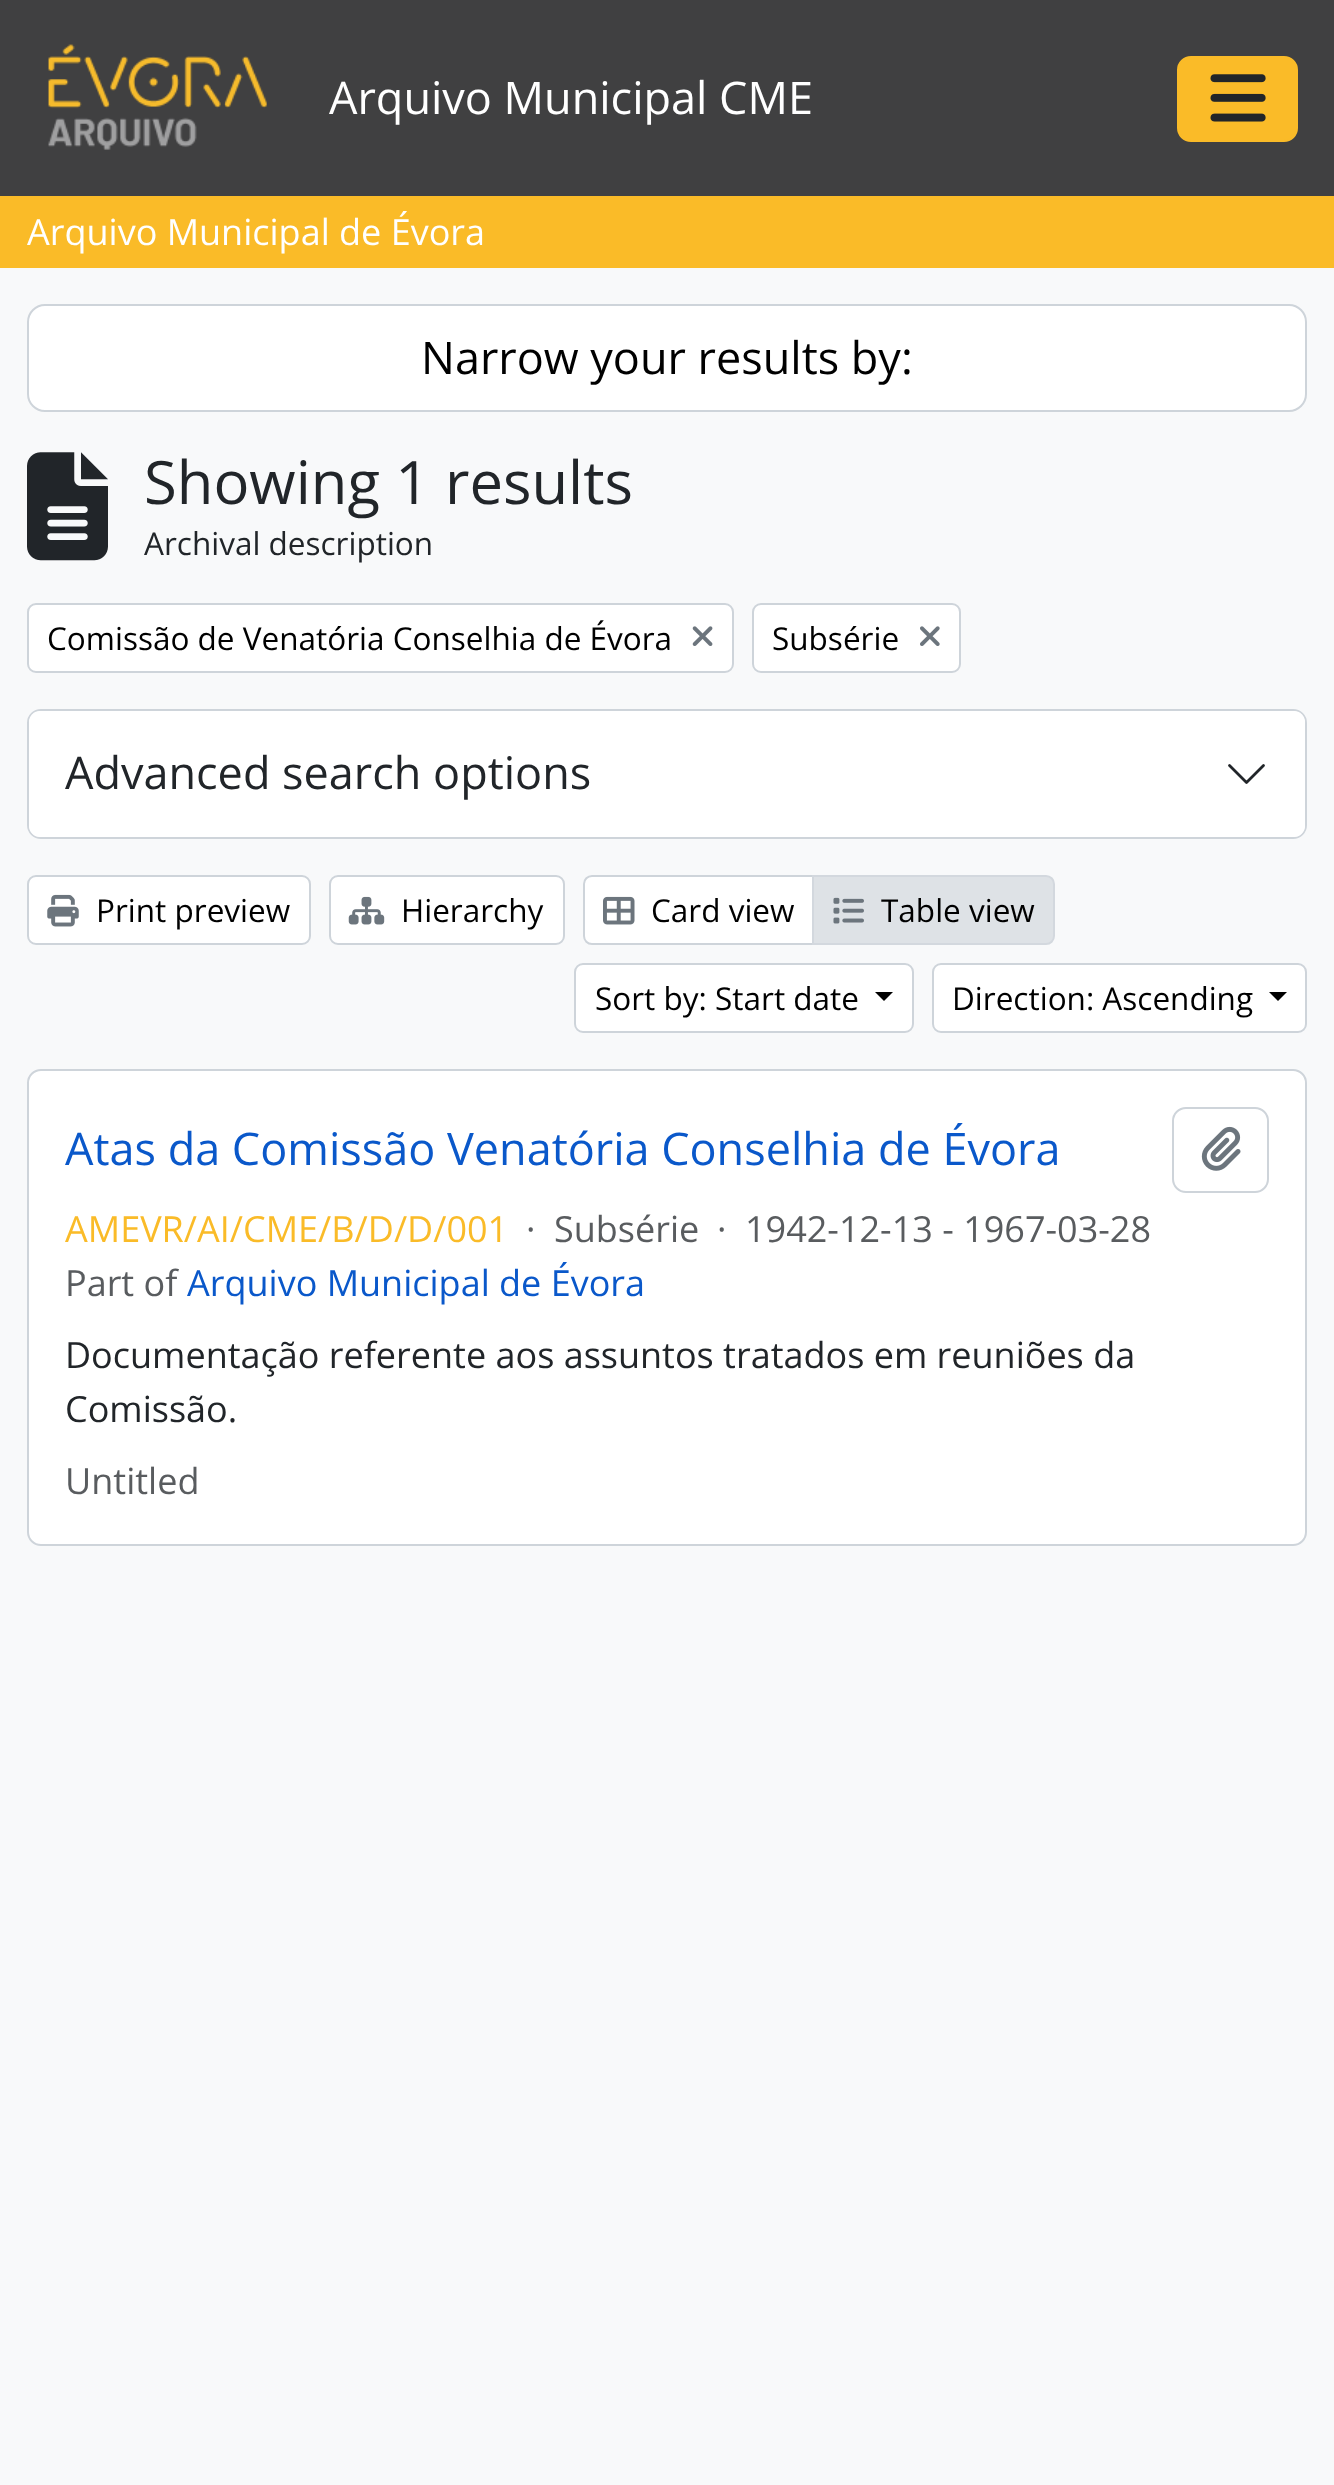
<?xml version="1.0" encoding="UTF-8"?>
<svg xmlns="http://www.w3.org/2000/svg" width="1334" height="2485">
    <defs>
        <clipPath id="clip1"><rect x="65" y="1123" width="995" height="54"/></clipPath>
    </defs>
    <rect width="100%" height="100%" fill="#F8F9FA"/>
    <rect x="0" y="0" width="1334" height="196" fill="#404041"/>
    <image x="48" y="44" width="219" height="106" href="img_01.png"/>
    <text x="329" y="114" font-family="Open Sans" font-size="45" fill="#FFFFFF">Arquivo Municipal CME</text>
    <rect x="1178" y="57" width="119" height="84" rx="13" fill="#FABB28" stroke="#FABB28" stroke-width="2"/>
    <image x="1210" y="74" width="56" height="48" href="img_02.png"/>
    <rect x="0" y="196" width="1334" height="72" fill="#FABB28"/>
    <text x="27" y="245" font-family="Open Sans" font-size="36" fill="#FFFFFF">Arquivo Municipal de Évora</text>
    <rect x="28" y="305" width="1278" height="106" rx="17" fill="#FFFFFF" stroke="#CED4DA" stroke-width="2"/>
    <text x="421" y="374" font-family="Open Sans" font-size="45" fill="#000000">Narrow your results by:</text>
    <image x="27" y="452" width="81" height="109" href="img_03.png"/>
    <text x="144" y="504" font-family="Open Sans" font-size="59.75" fill="#212529">Showing 1 results</text>
    <text x="144" y="555" font-family="Open Sans" font-size="31.5" fill="#212529">Archival description</text>
    <rect x="28" y="604" width="705" height="68" rx="8" fill="#FFFFFF" stroke="#CED4DA" stroke-width="2"/>
    <text x="47" y="650" font-family="Open Sans" font-size="31.5" fill="#000000">Comissão de Venatória Conselhia de Évora</text>
    <image x="692" y="626" width="21" height="20" href="img_04.png"/>
    <rect x="753" y="604" width="207" height="68" rx="8" fill="#FFFFFF" stroke="#CED4DA" stroke-width="2"/>
    <text x="772" y="650" font-family="Open Sans" font-size="31.5" fill="#000000">Subsérie</text>
    <image x="920" y="626" width="20" height="20" href="img_05.png"/>
    <rect x="28" y="710" width="1278" height="128" rx="13" fill="none" stroke="#CED4DA" stroke-width="2"/>
    <rect x="29" y="711" width="1276" height="126" rx="11" fill="#FFFFFF"/>
    <text x="65" y="789" font-family="Open Sans" font-size="45" fill="#212529">Advanced search options</text>
    <path d="M 1229.5 765.5 L 1246.5 782.5 L 1263.5 765.5" fill="none" stroke="#212529" stroke-width="2.8" stroke-linecap="round" stroke-linejoin="round"/>
    <rect x="28" y="876" width="282" height="68" rx="8" fill="#FFFFFF" stroke="#CED4DA" stroke-width="2"/>
    <image x="47" y="894" width="32" height="33" href="img_06.png"/>
    <text x="96" y="922" font-family="Open Sans" font-size="31.5" fill="#000000">Print preview</text>
    <rect x="330" y="876" width="234" height="68" rx="8" fill="#FFFFFF" stroke="#CED4DA" stroke-width="2"/>
    <image x="348" y="896" width="37" height="29" href="img_07.png"/>
    <text x="401" y="922" font-family="Open Sans" font-size="31.5" fill="#000000">Hierarchy</text>
    <path d="M 592 876 H 814 V 944 H 592 C 587.5 944 584 940.5 584 936 V 884 C 584 879.5 587.5 876 592 876 Z" fill="#FFFFFF" stroke="#CED4DA" stroke-width="2"/>
    <image x="603" y="896" width="32" height="29" href="img_08.png"/>
    <text x="651" y="922" font-family="Open Sans" font-size="31.5" fill="#000000">Card view</text>
    <path d="M 813 876 H 1046 C 1050.5 876 1054 879.5 1054 884 V 936 C 1054 940.5 1050.5 944 1046 944 H 813 Z" fill="#DEE2E6" stroke="#D3D8DE" stroke-width="2"/>
    <image x="833" y="897" width="31" height="27" href="img_09.png"/>
    <text x="881" y="922" font-family="Open Sans" font-size="31.5" fill="#000000">Table view</text>
    <rect x="575" y="964" width="338" height="68" rx="8" fill="#FFFFFF" stroke="#CED4DA" stroke-width="2"/>
    <text x="595" y="1010" font-family="Open Sans" font-size="31.5" fill="#000000">Sort by: Start date</text>
    <path d="M 875 992 H 893 L 884 1001 Z" fill="#000000"/>
    <rect x="933" y="964" width="373" height="68" rx="8" fill="#FFFFFF" stroke="#CED4DA" stroke-width="2"/>
    <text x="952" y="1010" font-family="Open Sans" font-size="31.5" fill="#000000">Direction: Ascending</text>
    <path d="M 1269 992 H 1287 L 1278 1001 Z" fill="#000000"/>
    <rect x="28" y="1070" width="1278" height="475" rx="13" fill="#FFFFFF" stroke="#CED4DA" stroke-width="2"/>
    <g clip-path="url(#clip1)">
        <text x="65" y="1165" font-family="Open Sans" font-size="45" fill="#0A58CA">Atas da Comissão Venatória Conselhia de Évora</text>
    </g>
    <rect x="1173" y="1108" width="95" height="84" rx="13" fill="none" stroke="#CED4DA" stroke-width="2"/>
    <image x="1201" y="1126" width="40" height="45" href="img_10.png"/>
    <text x="65" y="1242" font-family="Open Sans" font-size="36" fill="#FABB28">AMEVR/AI/CME/B/D/D/001</text>
    <text x="526" y="1242" font-family="Open Sans" font-size="36" fill="#595C5F">·</text>
    <text x="554" y="1242" font-family="Open Sans" font-size="36" fill="#595C5F">Subsérie</text>
    <text x="717" y="1242" font-family="Open Sans" font-size="36" fill="#595C5F">·</text>
    <text x="745" y="1242" font-family="Open Sans" font-size="36" fill="#595C5F">1942-12-13 - 1967-03-28</text>
    <text x="65" y="1296" font-family="Open Sans" font-size="36" fill="#595C5F">Part of</text>
    <text x="187" y="1296" font-family="Open Sans" font-size="36" fill="#0A58CA">Arquivo Municipal de Évora</text>
    <text font-family="Open Sans" font-size="36" fill="#212529">
        <tspan x="65" y="1368">Documentação referente aos assuntos tratados em reuniões da</tspan>
        <tspan x="65" y="1422">Comissão.</tspan>
    </text>
    <text x="65" y="1494" font-family="Open Sans" font-size="36" fill="#595C5F">Untitled</text>
</svg>
